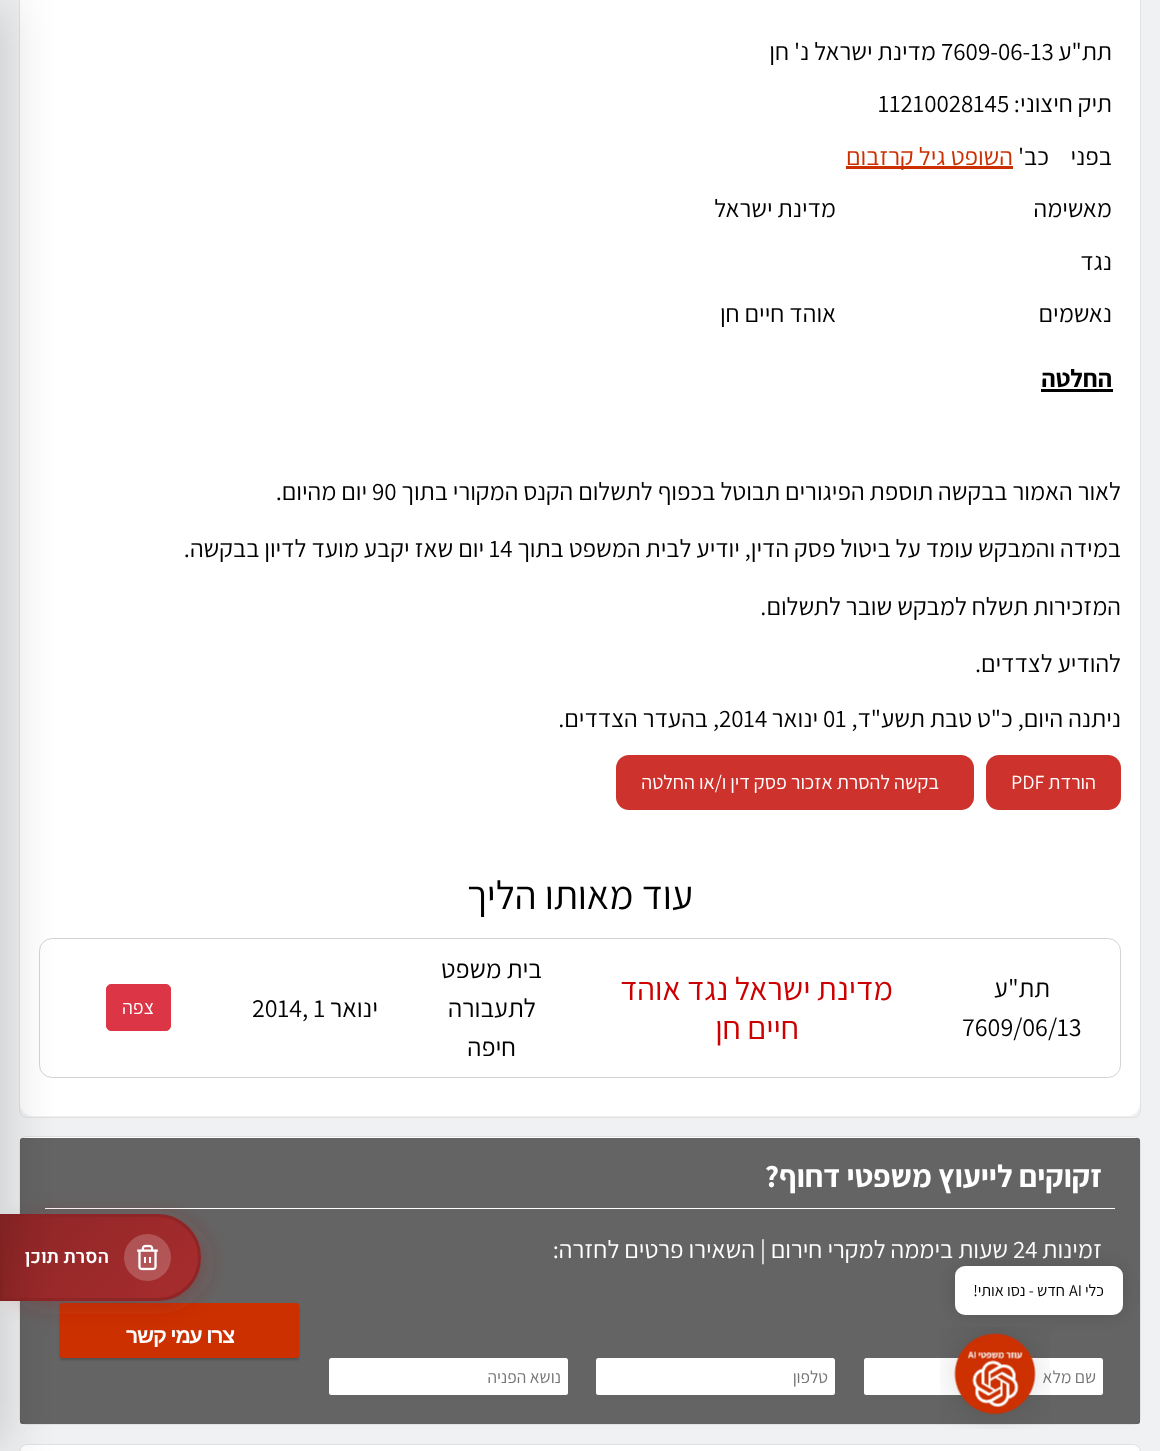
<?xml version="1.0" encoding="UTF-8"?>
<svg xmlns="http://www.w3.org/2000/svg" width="1160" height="1451">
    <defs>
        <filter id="blur1" x="-50%" y="-200%" width="200%" height="500%"><feGaussianBlur stdDeviation="1"/></filter>
        <filter id="blur2" x="-50%" y="-200%" width="200%" height="500%"><feGaussianBlur stdDeviation="12.5"/></filter>
        <clipPath id="clip1"><path d="M 0 1214 H 157.5 C 181.5 1214 201 1233.5 201 1257.5 C 201 1281.5 181.5 1301 157.5 1301 H 0 Z"/></clipPath>
        <linearGradient id="g1" gradientUnits="userSpaceOnUse" x1="31" y1="1188" x2="170" y2="1327"><stop offset="0" stop-color="#8E2526"/><stop offset="1" stop-color="#A82D2E"/></linearGradient>
        <filter id="blur3" x="-50%" y="-200%" width="200%" height="500%"><feGaussianBlur stdDeviation="25"/></filter>
        <filter id="blur4" x="-50%" y="-200%" width="200%" height="500%"><feGaussianBlur stdDeviation="9.5"/></filter>
    </defs>
    <rect width="100%" height="100%" fill="#F0F1F2"/>
    <rect x="19.5" y="-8.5" width="1121" height="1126" rx="7.5" fill="none" stroke="#E1E1E1"/>
    <rect x="20" y="-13" width="1120" height="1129" rx="13" fill="#FFFFFF"/>
    <text x="1112" y="60" font-family="Assistant" font-size="25" direction="rtl" fill="#000000">תת"ע</text>
    <text x="941" y="60" font-family="Assistant" font-size="25" fill="#000000">7609-06-13</text>
    <text x="936" y="60" font-family="Assistant" font-size="25" direction="rtl" fill="#000000">מדינת ישראל נ' חן</text>
    <text x="1112" y="112" font-family="Assistant" font-size="25" direction="rtl" fill="#000000">תיק חיצוני:</text>
    <text x="878" y="112" font-family="Assistant" font-size="25" fill="#000000">11210028145</text>
    <text x="1112" y="165" font-family="Assistant" font-size="25" direction="rtl" fill="#000000">בפני</text>
    <text x="1049" y="165" font-family="Assistant" font-size="25" direction="rtl" fill="#000000">כב'</text>
    <rect x="846" y="166" width="167" height="3" fill="#CC3000"/>
    <text x="1013" y="165" font-family="Assistant" font-size="25" direction="rtl" fill="#CC3000">השופט גיל קרזבום</text>
    <text x="1112" y="217" font-family="Assistant" font-size="25" direction="rtl" fill="#000000">מאשימה</text>
    <text x="836" y="217" font-family="Assistant" font-size="25" direction="rtl" fill="#000000">מדינת ישראל</text>
    <text x="1112" y="270" font-family="Assistant" font-size="25" direction="rtl" fill="#000000">נגד</text>
    <text x="1112" y="322" font-family="Assistant" font-size="25" direction="rtl" fill="#000000">נאשמים</text>
    <text x="836" y="322" font-family="Assistant" font-size="25" direction="rtl" fill="#000000">אוהד חיים חן</text>
    <text x="1112" y="387" font-family="Assistant" font-size="25" font-weight="700" direction="rtl" fill="#000000">החלטה</text>
    <rect x="1041" y="389" width="72" height="3" fill="#000000"/>
    <text x="1121" y="500" font-family="Assistant" font-size="25" direction="rtl" fill="#000000">לאור האמור בבקשה תוספת הפיגורים תבוטל בכפוף לתשלום הקנס המקורי בתוך</text>
    <text x="372" y="500" font-family="Assistant" font-size="25" fill="#000000">90</text>
    <text x="367" y="500" font-family="Assistant" font-size="25" direction="rtl" fill="#000000">יום מהיום.</text>
    <text x="1121" y="557" font-family="Assistant" font-size="25" direction="rtl" fill="#000000">במידה והמבקש עומד על ביטול פסק הדין, יודיע לבית המשפט בתוך</text>
    <text x="489" y="557" font-family="Assistant" font-size="25" fill="#000000">14</text>
    <text x="484" y="557" font-family="Assistant" font-size="25" direction="rtl" fill="#000000">יום שאז יקבע מועד לדיון בבקשה.</text>
    <text x="1121" y="615" font-family="Assistant" font-size="25" direction="rtl" fill="#000000">המזכירות תשלח למבקש שובר לתשלום.</text>
    <text x="1121" y="672" font-family="Assistant" font-size="25" direction="rtl" fill="#000000">להודיע לצדדים.</text>
    <text x="1121" y="727" font-family="Assistant" font-size="25" direction="rtl" fill="#000000">ניתנה היום, כ"ט טבת תשע"ד,</text>
    <text x="823" y="727" font-family="Assistant" font-size="25" fill="#000000">01</text>
    <text x="818" y="727" font-family="Assistant" font-size="25" direction="rtl" fill="#000000">ינואר</text>
    <text x="719" y="727" font-family="Assistant" font-size="25" fill="#000000">2014</text>
    <text x="719" y="727" font-family="Assistant" font-size="25" direction="rtl" fill="#000000">, בהעדר הצדדים.</text>
    <rect x="986" y="755" width="135" height="55" rx="13" fill="#CD332C"/>
    <text x="1096" y="789" font-family="Assistant" font-size="20" direction="rtl" fill="#FFFFFF">הורדת</text>
    <text x="1011" y="789" font-family="Assistant" font-size="20" fill="#FFFFFF">PDF</text>
    <rect x="616" y="755" width="358" height="55" rx="13" fill="#CD332C"/>
    <text x="939" y="789" font-family="Assistant" font-size="20" direction="rtl" fill="#FFFFFF">בקשה להסרת אזכור פסק דין ו/או החלטה</text>
    <text x="693" y="909" font-family="Assistant" font-size="40" direction="rtl" fill="#000000">עוד מאותו הליך</text>
    <rect x="39.5" y="938.5" width="1081" height="139" rx="12.5" fill="none" stroke="#D3D3D3"/>
    <text x="1050" y="997" font-family="Assistant" font-size="26" direction="rtl" fill="#000000">תת"ע</text>
    <text x="962" y="1036" font-family="Assistant" font-size="26" fill="#000000">7609/06/13</text>
    <text x="893" y="1000" font-family="Assistant" font-size="32.5" direction="rtl" fill="#CC0000">מדינת ישראל נגד אוהד</text>
    <text x="799" y="1039" font-family="Assistant" font-size="32.5" direction="rtl" fill="#CC0000">חיים חן</text>
    <text x="542" y="978" font-family="Assistant" font-size="26" direction="rtl" fill="#000000">בית משפט</text>
    <text x="536" y="1017" font-family="Assistant" font-size="26" direction="rtl" fill="#000000">לתעבורה</text>
    <text x="516" y="1056" font-family="Assistant" font-size="26" direction="rtl" fill="#000000">חיפה</text>
    <text x="378" y="1017" font-family="Assistant" font-size="26" direction="rtl" fill="#000000">ינואר</text>
    <text x="252" y="1017" font-family="Assistant" font-size="26" fill="#000000">2014, 1</text>
    <rect x="106.5" y="984.5" width="64" height="46" rx="4.5" fill="#DC3545" stroke="#DC3545"/>
    <text x="154" y="1014" font-family="Assistant" font-size="20" direction="rtl" fill="#FFFFFF">צפה</text>
    <rect x="19.5" y="1136.5" width="1121" height="288" rx="7.5" fill="#FFFFFF" stroke="#E1E1E1"/>
    <rect x="20" y="1138" width="1120" height="286" rx="2.5" fill="#303030" fill-opacity="0.75"/>
    <rect x="45" y="1208" width="1070" height="1" fill="#FFFFFF"/>
    <text x="1102" y="1187" font-family="Assistant" font-size="31.25" font-weight="700" direction="rtl" fill="#FFFFFF">זקוקים לייעוץ משפטי דחוף?</text>
    <text x="1102" y="1258" font-family="Assistant" font-size="25" direction="rtl" fill="#FFFFFF">זמינות</text>
    <text x="1013" y="1258" font-family="Assistant" font-size="25" fill="#FFFFFF">24</text>
    <text x="1008" y="1258" font-family="Assistant" font-size="25" direction="rtl" fill="#FFFFFF">שעות ביממה למקרי חירום | השאירו פרטים לחזרה:</text>
    <rect x="60" y="1305" width="239" height="55" rx="2.5" fill="#000000" fill-opacity="0.2" filter="url(#blur1)"/>
    <rect x="60" y="1303" width="239" height="55" rx="2.5" fill="#CC3000"/>
    <text x="234" y="1343" font-family="Liberation Sans" font-size="21.25" font-weight="700" letter-spacing="-1.25" direction="rtl" fill="#FFFFFF">צרו עמי קשר</text>
    <rect x="864" y="1358" width="239" height="37" rx="2.5" fill="#FFFFFF"/>
    <text x="1096" y="1383" font-family="Assistant" font-size="17.5" direction="rtl" fill="#757575">שם מלא</text>
    <rect x="596" y="1358" width="239" height="37" rx="2.5" fill="#FFFFFF"/>
    <text x="828" y="1383" font-family="Assistant" font-size="17.5" direction="rtl" fill="#757575">טלפון</text>
    <rect x="329" y="1358" width="239" height="37" rx="2.5" fill="#FFFFFF"/>
    <text x="561" y="1383" font-family="Assistant" font-size="17.5" direction="rtl" fill="#757575">נושא הפניה</text>
    <rect x="19.5" y="1444.5" width="1121" height="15" rx="7.5" fill="#FFFFFF" stroke="#E1E1E1"/>
    <rect x="5" y="1219" width="201" height="87" rx="43.5" fill="#8E2526" fill-opacity="0.35" filter="url(#blur2)"/>
    <g clip-path="url(#clip1)">
        <rect x="3" y="1216" width="196" height="83" fill="url(#g1)"/>
    </g>
    <path d="M 1.5 1215.5 H 157.5 C 180.5 1215.5 199.5 1234.5 199.5 1257.5 C 199.5 1280.5 180.5 1299.5 157.5 1299.5 H 1.5 Z" fill="none" stroke="#8E2526" stroke-width="3"/>
    <rect x="-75" y="0" width="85" height="1451" fill="#000000" fill-opacity="0.15" filter="url(#blur3)"/>
    <circle cx="147.5" cy="1257.5" r="23.5" fill="#FFFFFF" fill-opacity="0.2"/>
    <image x="137" y="1244" width="21" height="27" href="img_01.png"/>
    <text x="109" y="1263" font-family="Heebo" font-size="19" font-weight="600" direction="rtl" fill="#FFFFFF">הסרת תוכן</text>
    <rect x="955" y="1266" width="168" height="49" rx="10" fill="#000000" fill-opacity="0.15" filter="url(#blur4)"/>
    <rect x="955" y="1266" width="168" height="49" rx="10" fill="#FFFFFF"/>
    <text x="1104" y="1296" font-family="Assistant" font-size="16.25" direction="rtl" fill="#000000">כלי</text>
    <text x="1069" y="1296" font-family="Assistant" font-size="16.25" fill="#000000">AI</text>
    <text x="1065" y="1296" font-family="Assistant" font-size="16.25" direction="rtl" fill="#000000">חדש - נסו אותי!</text>
    <image x="940" y="1327" width="110" height="102" href="img_02.png"/>
</svg>
